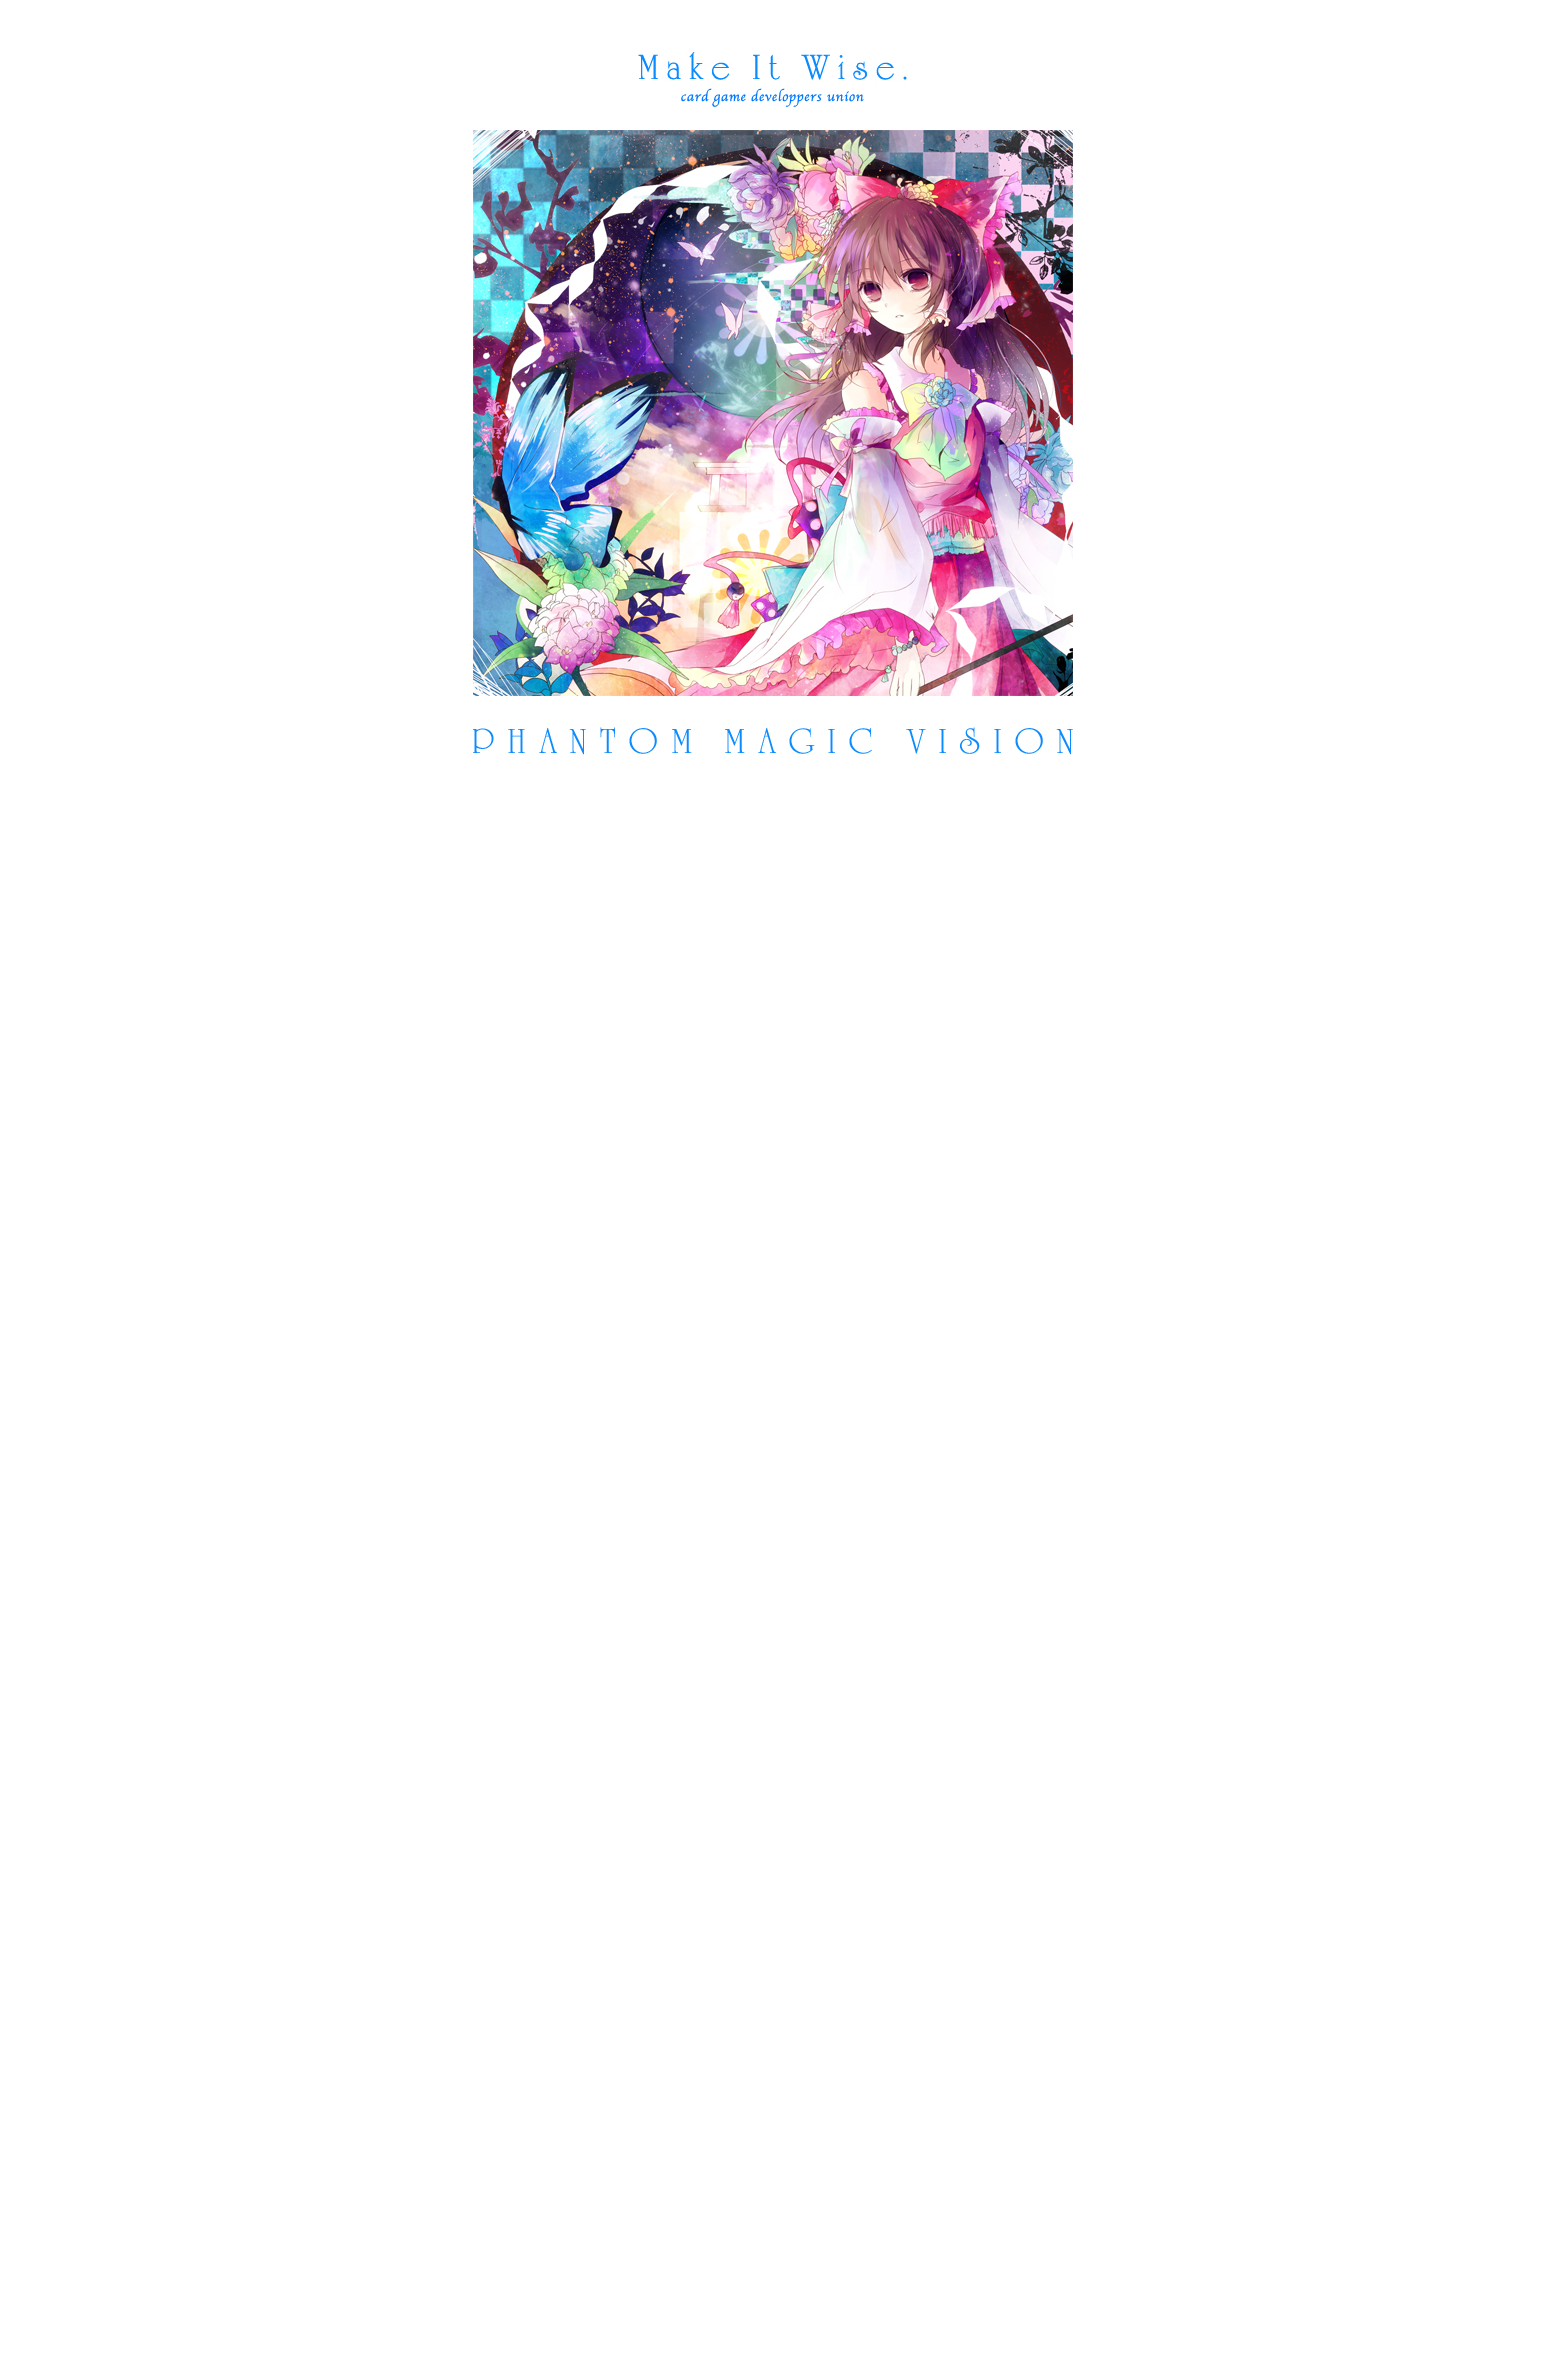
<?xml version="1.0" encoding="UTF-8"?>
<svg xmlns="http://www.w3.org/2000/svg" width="1546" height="2368">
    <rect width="100%" height="100%" fill="#FFFFFF"/>
    <image x="635" y="51" width="272" height="57" href="img_01.png"/>
    <image x="473" y="130" width="600" height="566" href="img_02.png"/>
    <image x="473" y="727" width="600" height="28" href="img_03.png"/>
</svg>
